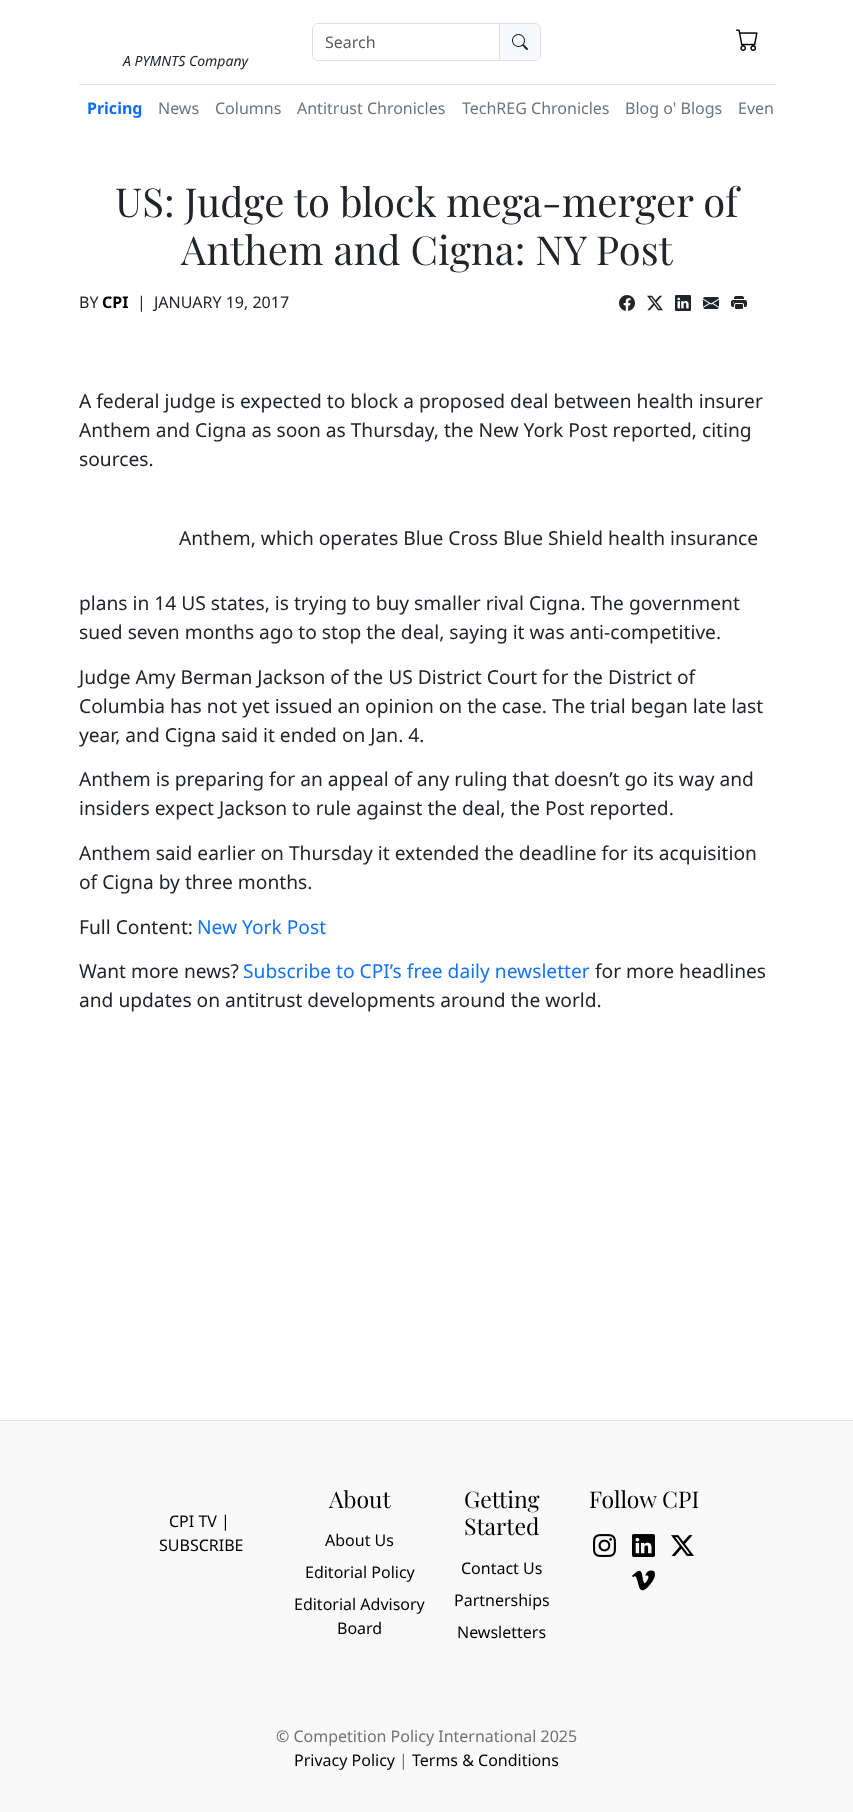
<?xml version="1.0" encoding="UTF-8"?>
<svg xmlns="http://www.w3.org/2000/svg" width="853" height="1812">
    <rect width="100%" height="100%" fill="#FFFFFF"/>
    <rect x="79" y="84" width="696" height="1" fill="#E5E5E5"/>
    <path d="M 499.5 23.5 H 535 C 538 23.5 540.5 26 540.5 29 V 55 C 540.5 58 538 60.5 535 60.5 H 499.5 Z" fill="#F8F9FA" stroke="#DEE2E6"/>
    <path d="M 318 23.5 H 499.5 V 60.5 H 318 C 315 60.5 312.5 58 312.5 55 V 29 C 312.5 26 315 23.5 318 23.5 Z" fill="none" stroke="#DEE2E6"/>
    <text x="325" y="48" font-family="Noto Sans" font-size="16" fill="#595C5F">Search</text>
    <image x="512" y="34" width="16" height="16" href="img_01.png"/>
    <image x="736" y="29" width="22" height="22" href="img_02.png"/>
    <text x="123" y="66" font-family="Noto Sans" font-size="14" font-style="italic" fill="#212529">A PYMNTS Company</text>
    <text x="87" y="114" font-family="Noto Sans" font-size="16" font-weight="700" fill="#0D6EFD">Pricing</text>
    <text x="158" y="114" font-family="Noto Sans" font-size="16" fill="#6C757D">News</text>
    <text x="215" y="114" font-family="Noto Sans" font-size="16" fill="#6C757D">Columns</text>
    <text x="297" y="114" font-family="Noto Sans" font-size="16" fill="#6C757D">Antitrust Chronicles</text>
    <text x="462" y="114" font-family="Noto Sans" font-size="16" fill="#6C757D">TechREG Chronicles</text>
    <text x="625" y="114" font-family="Noto Sans" font-size="16" fill="#6C757D">Blog o' Blogs</text>
    <text x="738" y="114" font-family="Noto Sans" font-size="16" fill="#6C757D">Even</text>
    <text x="115" y="217" font-family="Playfair Display" font-size="40" fill="#212529">US: Judge to block mega-merger of</text>
    <text x="181" y="265" font-family="Playfair Display" font-size="40" fill="#212529">Anthem and Cigna: NY Post</text>
    <text x="79" y="308" font-family="Noto Sans" font-size="16" fill="#212529">BY</text>
    <text x="102" y="308" font-family="Noto Sans" font-size="16" font-weight="700" fill="#000000">CPI</text>
    <text x="137" y="308" font-family="Noto Sans" font-size="16" fill="#212529">|</text>
    <text x="154" y="308" font-family="Noto Sans" font-size="16" fill="#212529">JANUARY 19, 2017</text>
    <image x="619" y="295" width="16" height="16" href="img_03.png"/>
    <image x="647" y="295" width="16" height="16" href="img_04.png"/>
    <image x="675" y="295" width="16" height="16" href="img_05.png"/>
    <image x="703" y="297" width="16" height="12" href="img_06.png"/>
    <image x="731" y="296" width="16" height="13" href="img_07.png"/>
    <text font-family="Noto Sans" font-size="19.2" fill="#212529">
        <tspan x="79" y="408">A federal judge is expected to block a proposed deal between health insurer</tspan>
        <tspan x="79" y="437">Anthem and Cigna as soon as Thursday, the New York Post reported, citing</tspan>
        <tspan x="79" y="466">sources.</tspan>
    </text>
    <text x="179" y="545" font-family="Noto Sans" font-size="19.2" fill="#212529">Anthem, which operates Blue Cross Blue Shield health insurance</text>
    <text font-family="Noto Sans" font-size="19.2" fill="#212529">
        <tspan x="79" y="610">plans in 14 US states, is trying to buy smaller rival Cigna. The government</tspan>
        <tspan x="79" y="639">sued seven months ago to stop the deal, saying it was anti-competitive.</tspan>
    </text>
    <text font-family="Noto Sans" font-size="19.2" fill="#212529">
        <tspan x="79" y="684">Judge Amy Berman Jackson of the US District Court for the District of</tspan>
        <tspan x="79" y="713">Columbia has not yet issued an opinion on the case. The trial began late last</tspan>
        <tspan x="79" y="742">year, and Cigna said it ended on Jan. 4.</tspan>
    </text>
    <text font-family="Noto Sans" font-size="19.2" fill="#212529">
        <tspan x="79" y="786">Anthem is preparing for an appeal of any ruling that doesn’t go its way and</tspan>
        <tspan x="79" y="815">insiders expect Jackson to rule against the deal, the Post reported.</tspan>
    </text>
    <text font-family="Noto Sans" font-size="19.2" fill="#212529">
        <tspan x="79" y="860">Anthem said earlier on Thursday it extended the deadline for its acquisition</tspan>
        <tspan x="79" y="889">of Cigna by three months.</tspan>
    </text>
    <text x="79" y="934" font-family="Noto Sans" font-size="19.2" fill="#212529">Full Content:</text>
    <text x="197" y="934" font-family="Noto Sans" font-size="19.2" fill="#1373F9">New York Post</text>
    <text x="79" y="978" font-family="Noto Sans" font-size="19.2" fill="#212529">Want more news?</text>
    <text x="243" y="978" font-family="Noto Sans" font-size="19.2" fill="#1373F9">Subscribe to CPI’s free daily newsletter</text>
    <text x="595" y="978" font-family="Noto Sans" font-size="19.2" fill="#212529">for more headlines</text>
    <text x="79" y="1007" font-family="Noto Sans" font-size="19.2" fill="#212529">and updates on antitrust developments around the world.</text>
    <rect x="0" y="1421" width="853" height="391" fill="#F9F9F9"/>
    <rect x="0" y="1420" width="853" height="1" fill="#E5E5E5"/>
    <text x="169" y="1527" font-family="Noto Sans" font-size="16" fill="#000000">CPI TV |</text>
    <text x="159" y="1551" font-family="Noto Sans" font-size="16" fill="#000000">SUBSCRIBE</text>
    <text x="329" y="1508" font-family="Playfair Display" font-size="23" fill="#000000">About</text>
    <text x="325" y="1546" font-family="Noto Sans" font-size="16" fill="#000000">About Us</text>
    <text x="305" y="1578" font-family="Noto Sans" font-size="16" fill="#000000">Editorial Policy</text>
    <text x="294" y="1610" font-family="Noto Sans" font-size="16" fill="#000000">Editorial Advisory</text>
    <text x="337" y="1634" font-family="Noto Sans" font-size="16" fill="#000000">Board</text>
    <text font-family="Playfair Display" font-size="23" fill="#000000">
        <tspan x="464" y="1508">Getting</tspan>
        <tspan x="464" y="1535">Started</tspan>
    </text>
    <text x="461" y="1574" font-family="Noto Sans" font-size="16" fill="#000000">Contact Us</text>
    <text x="454" y="1606" font-family="Noto Sans" font-size="16" fill="#000000">Partnerships</text>
    <text x="457" y="1638" font-family="Noto Sans" font-size="16" fill="#000000">Newsletters</text>
    <text x="589" y="1508" font-family="Playfair Display" font-size="23" fill="#000000">Follow CPI</text>
    <image x="593" y="1534" width="23" height="23" href="img_08.png"/>
    <image x="632" y="1534" width="23" height="23" href="img_09.png"/>
    <image x="671" y="1535" width="23" height="21" href="img_10.png"/>
    <image x="632" y="1570" width="23" height="21" href="img_11.png"/>
    <text x="276" y="1742" font-family="Noto Sans" font-size="16" fill="#727272">© Competition Policy International 2025</text>
    <text x="294" y="1766" font-family="Noto Sans" font-size="16" fill="#000000">Privacy Policy</text>
    <text x="399" y="1766" font-family="Noto Sans" font-size="16" fill="#727272">|</text>
    <text x="412" y="1766" font-family="Noto Sans" font-size="16" fill="#000000">Terms &amp; Conditions</text>
</svg>
